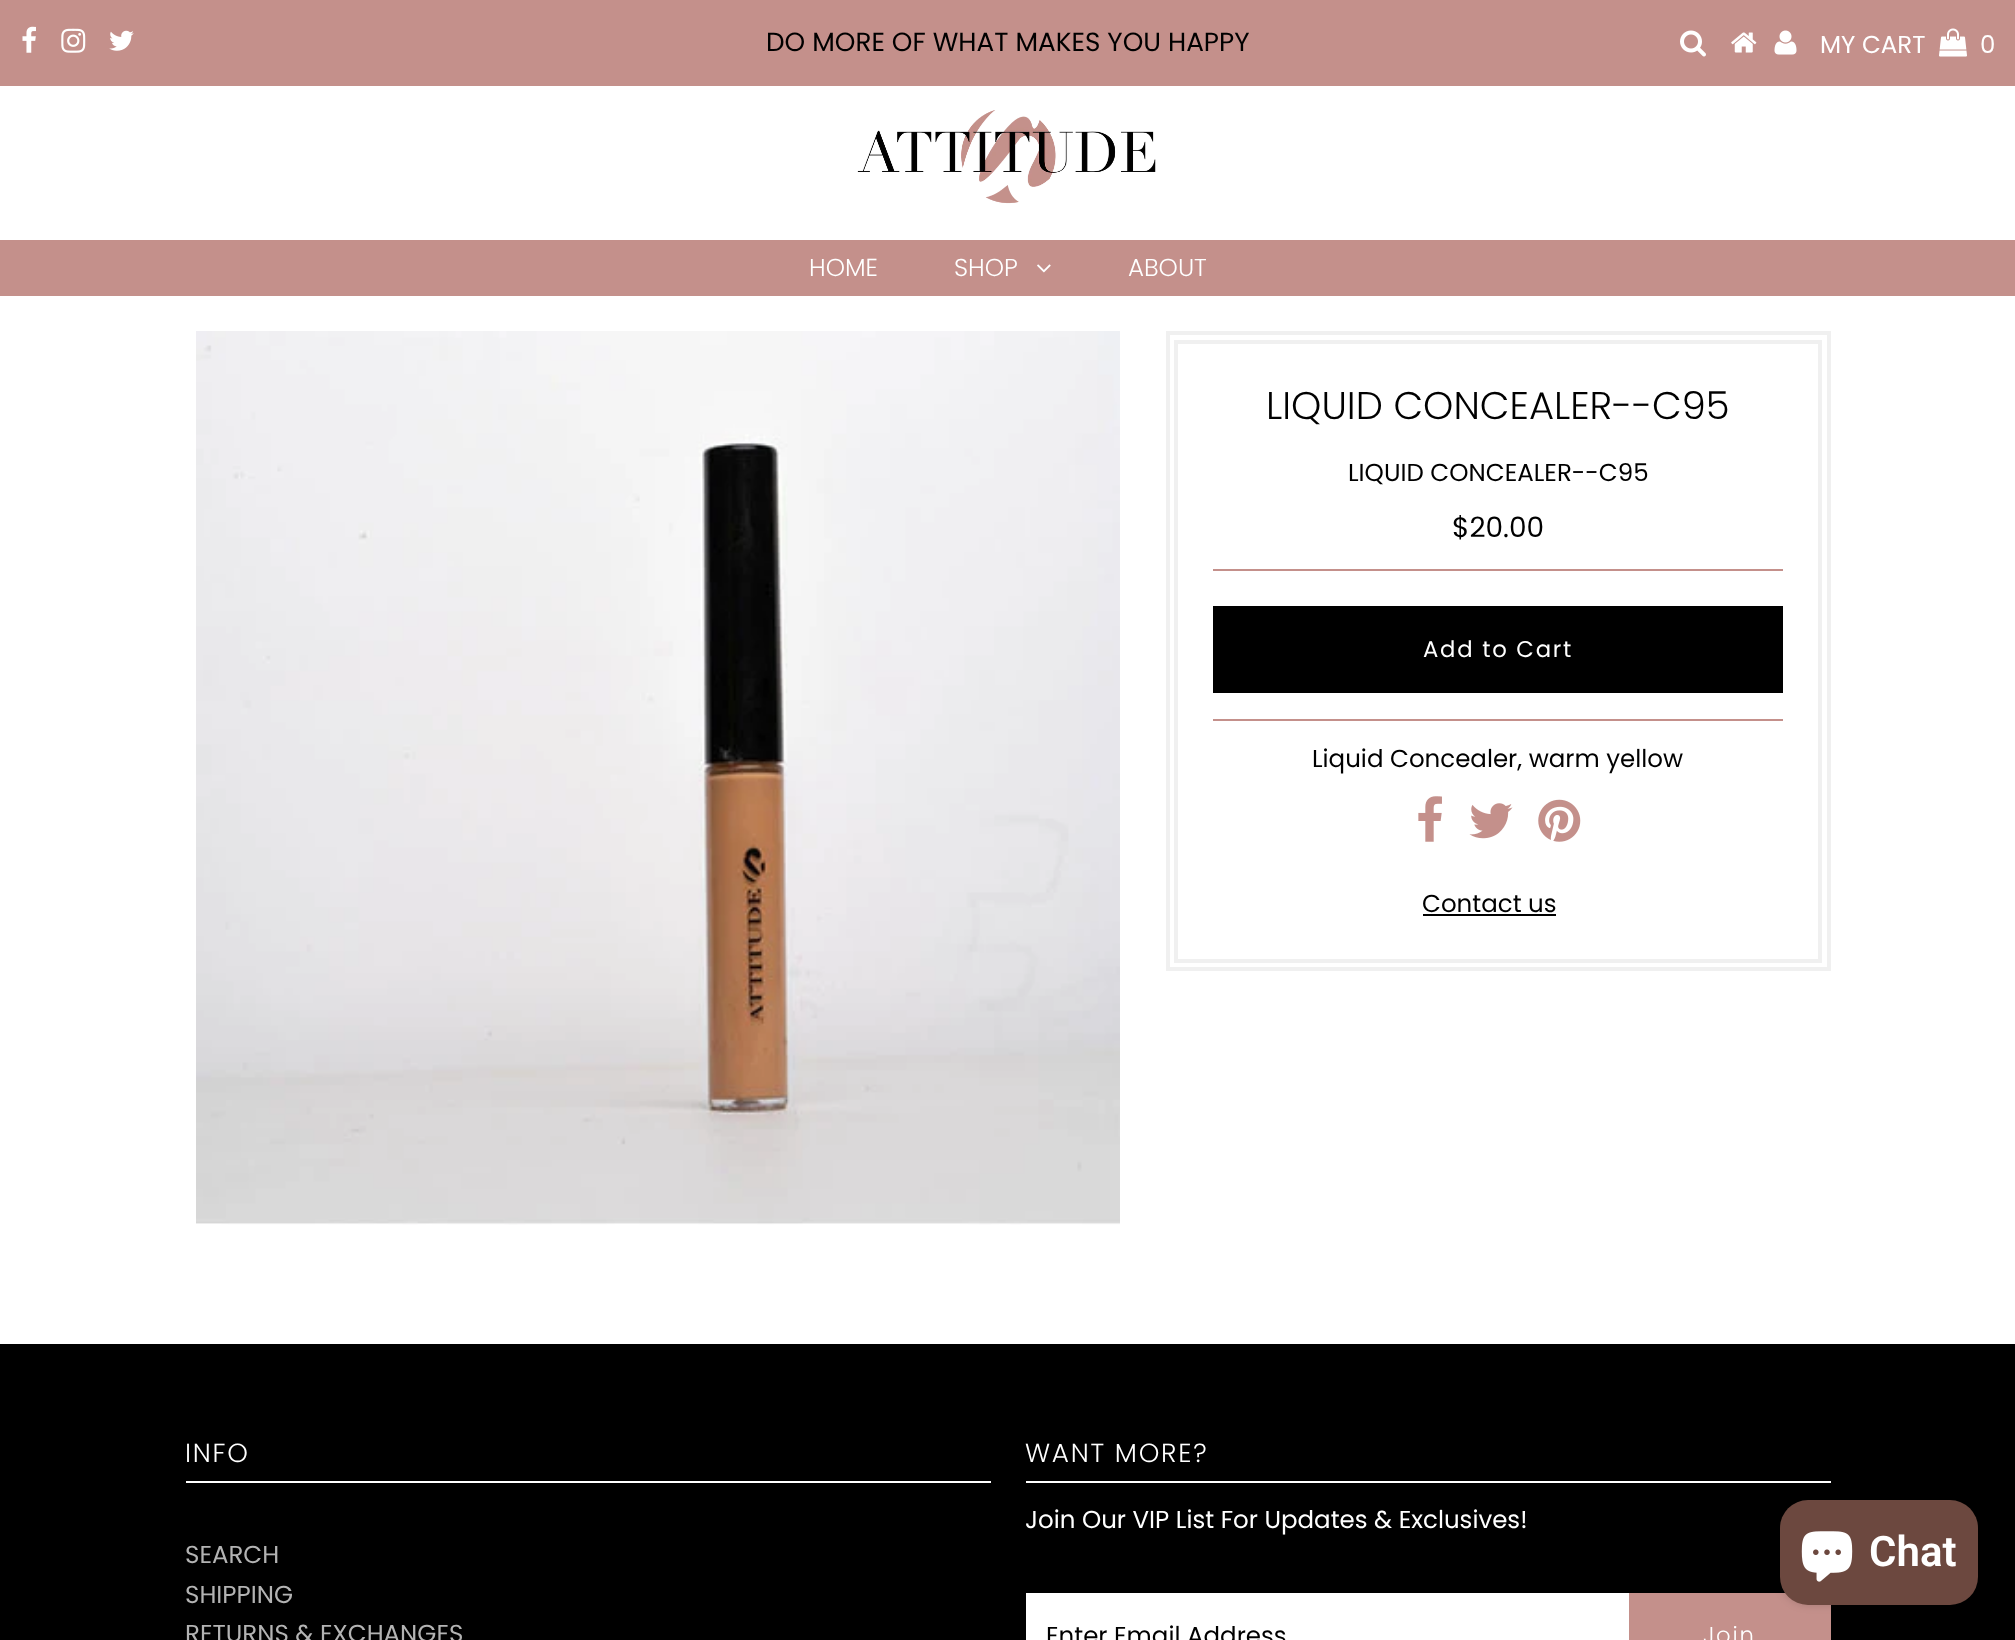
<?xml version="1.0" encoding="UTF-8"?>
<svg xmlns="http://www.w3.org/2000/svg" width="2015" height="1640">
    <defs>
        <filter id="blur1" x="-50%" y="-200%" width="200%" height="500%"><feGaussianBlur stdDeviation="4.5"/></filter>
    </defs>
    <rect width="100%" height="100%" fill="#FFFFFF"/>
    <rect x="0" y="0" width="2015" height="86" fill="#C4908B"/>
    <image x="22" y="26" width="14" height="27" href="img_01.png"/>
    <image x="61" y="28" width="25" height="25" href="img_02.png"/>
    <image x="109" y="30" width="25" height="21" href="img_03.png"/>
    <text x="766" y="51" font-family="Poppins" font-size="26.25" fill="#000000">DO MORE OF WHAT MAKES YOU HAPPY</text>
    <image x="1680" y="30" width="26" height="27" href="img_04.png"/>
    <image x="1731" y="32" width="26" height="21" href="img_05.png"/>
    <image x="1774" y="30" width="23" height="25" href="img_06.png"/>
    <text x="1820" y="53" font-family="Poppins" font-size="24.5" fill="#FFFFFF">MY CART</text>
    <image x="1939" y="28" width="28" height="29" href="img_07.png"/>
    <text x="1980" y="53" font-family="Poppins" font-size="24.5" fill="#FFFFFF">0</text>
    <image x="857" y="110" width="299" height="94" href="img_08.png"/>
    <rect x="0" y="240" width="2015" height="56" fill="#C4908B"/>
    <text x="809" y="276" font-family="Poppins" font-size="24.5" font-weight="300" fill="#FFFFFF">HOME</text>
    <text x="954" y="276" font-family="Poppins" font-size="24.5" font-weight="300" fill="#FFFFFF">SHOP</text>
    <image x="1037" y="264" width="14" height="9" href="img_09.png"/>
    <text x="1128" y="276" font-family="Poppins" font-size="24.5" font-weight="300" fill="#FFFFFF">ABOUT</text>
    <image x="196" y="331" width="924" height="894" href="img_10.png"/>
    <rect x="1168" y="333" width="661" height="636" fill="none" stroke="#F0F0F0" stroke-width="4"/>
    <rect x="1176" y="342" width="644" height="619" fill="none" stroke="#F0F0F0" stroke-width="4"/>
    <text x="1266" y="419" font-family="Poppins" font-size="38.5" font-weight="300" fill="#000000">LIQUID CONCEALER--C95</text>
    <text x="1348" y="481" font-family="Poppins" font-size="24.5" fill="#000000">LIQUID CONCEALER--C95</text>
    <rect x="1213" y="719" width="570" height="2" fill="#C4908B"/>
    <rect x="1213" y="569" width="570" height="2" fill="#C4908B"/>
    <text x="1452" y="537" font-family="Poppins" font-size="28" fill="#000000">$20.00</text>
    <rect x="1213" y="606" width="570" height="87" fill="#000000"/>
    <text x="1423" y="657" font-family="Poppins" font-size="22.75" letter-spacing="1.75" fill="#FFFFFF">Add to Cart</text>
    <text x="1312" y="767" font-family="Poppins" font-size="24.5" fill="#000000">Liquid Concealer, warm yellow</text>
    <image x="1418" y="796" width="24" height="46" href="img_11.png"/>
    <image x="1469" y="803" width="44" height="36" href="img_12.png"/>
    <image x="1538" y="799" width="43" height="43" href="img_13.png"/>
    <text x="1422" y="912" font-family="Poppins" font-size="24.5" fill="#000000">Contact us</text>
    <rect x="1423" y="914" width="133" height="2" fill="#000000"/>
    <rect x="0" y="1344" width="2015" height="296" fill="#000000"/>
    <rect x="186" y="1481" width="805" height="2" fill="#FFFFFF"/>
    <text x="185" y="1462" font-family="Poppins" font-size="26.25" font-weight="300" letter-spacing="1.75" fill="#FFFFFF">INFO</text>
    <text font-family="Poppins" font-size="24.5" fill="#B3B3B3">
        <tspan x="185" y="1563">SEARCH</tspan>
        <tspan x="185" y="1603">SHIPPING</tspan>
        <tspan x="185" y="1642">RETURNS &amp; EXCHANGES</tspan>
    </text>
    <rect x="1026" y="1481" width="805" height="2" fill="#FFFFFF"/>
    <text x="1025" y="1462" font-family="Poppins" font-size="26.25" font-weight="300" letter-spacing="1.75" fill="#FFFFFF">WANT MORE?</text>
    <text x="1025" y="1528" font-family="Poppins" font-size="24.5" fill="#FFFFFF">Join Our VIP List For Updates &amp; Exclusives!</text>
    <rect x="1026" y="1593" width="603" height="47" fill="#FFFFFF"/>
    <text x="1046" y="1644" font-family="Poppins" font-size="24.5" fill="#000000">Enter Email Address</text>
    <rect x="1629" y="1593" width="202" height="47" fill="#C4908B"/>
    <text x="1703" y="1643" font-family="Poppins" font-size="22.75" font-weight="300" letter-spacing="1.75" fill="#FFFFFF">Join</text>
    <rect x="1780" y="1500" width="198" height="105" rx="28" fill="#000000" fill-opacity="0.15" filter="url(#blur1)"/>
    <rect x="1780" y="1500" width="198" height="105" rx="28" fill="#6C483F"/>
    <image x="1801" y="1531" width="52" height="51" href="img_14.png"/>
    <text x="1869" y="1566" font-family="Roboto" font-size="42" font-weight="600" fill="#FFFFFF">Chat</text>
</svg>
